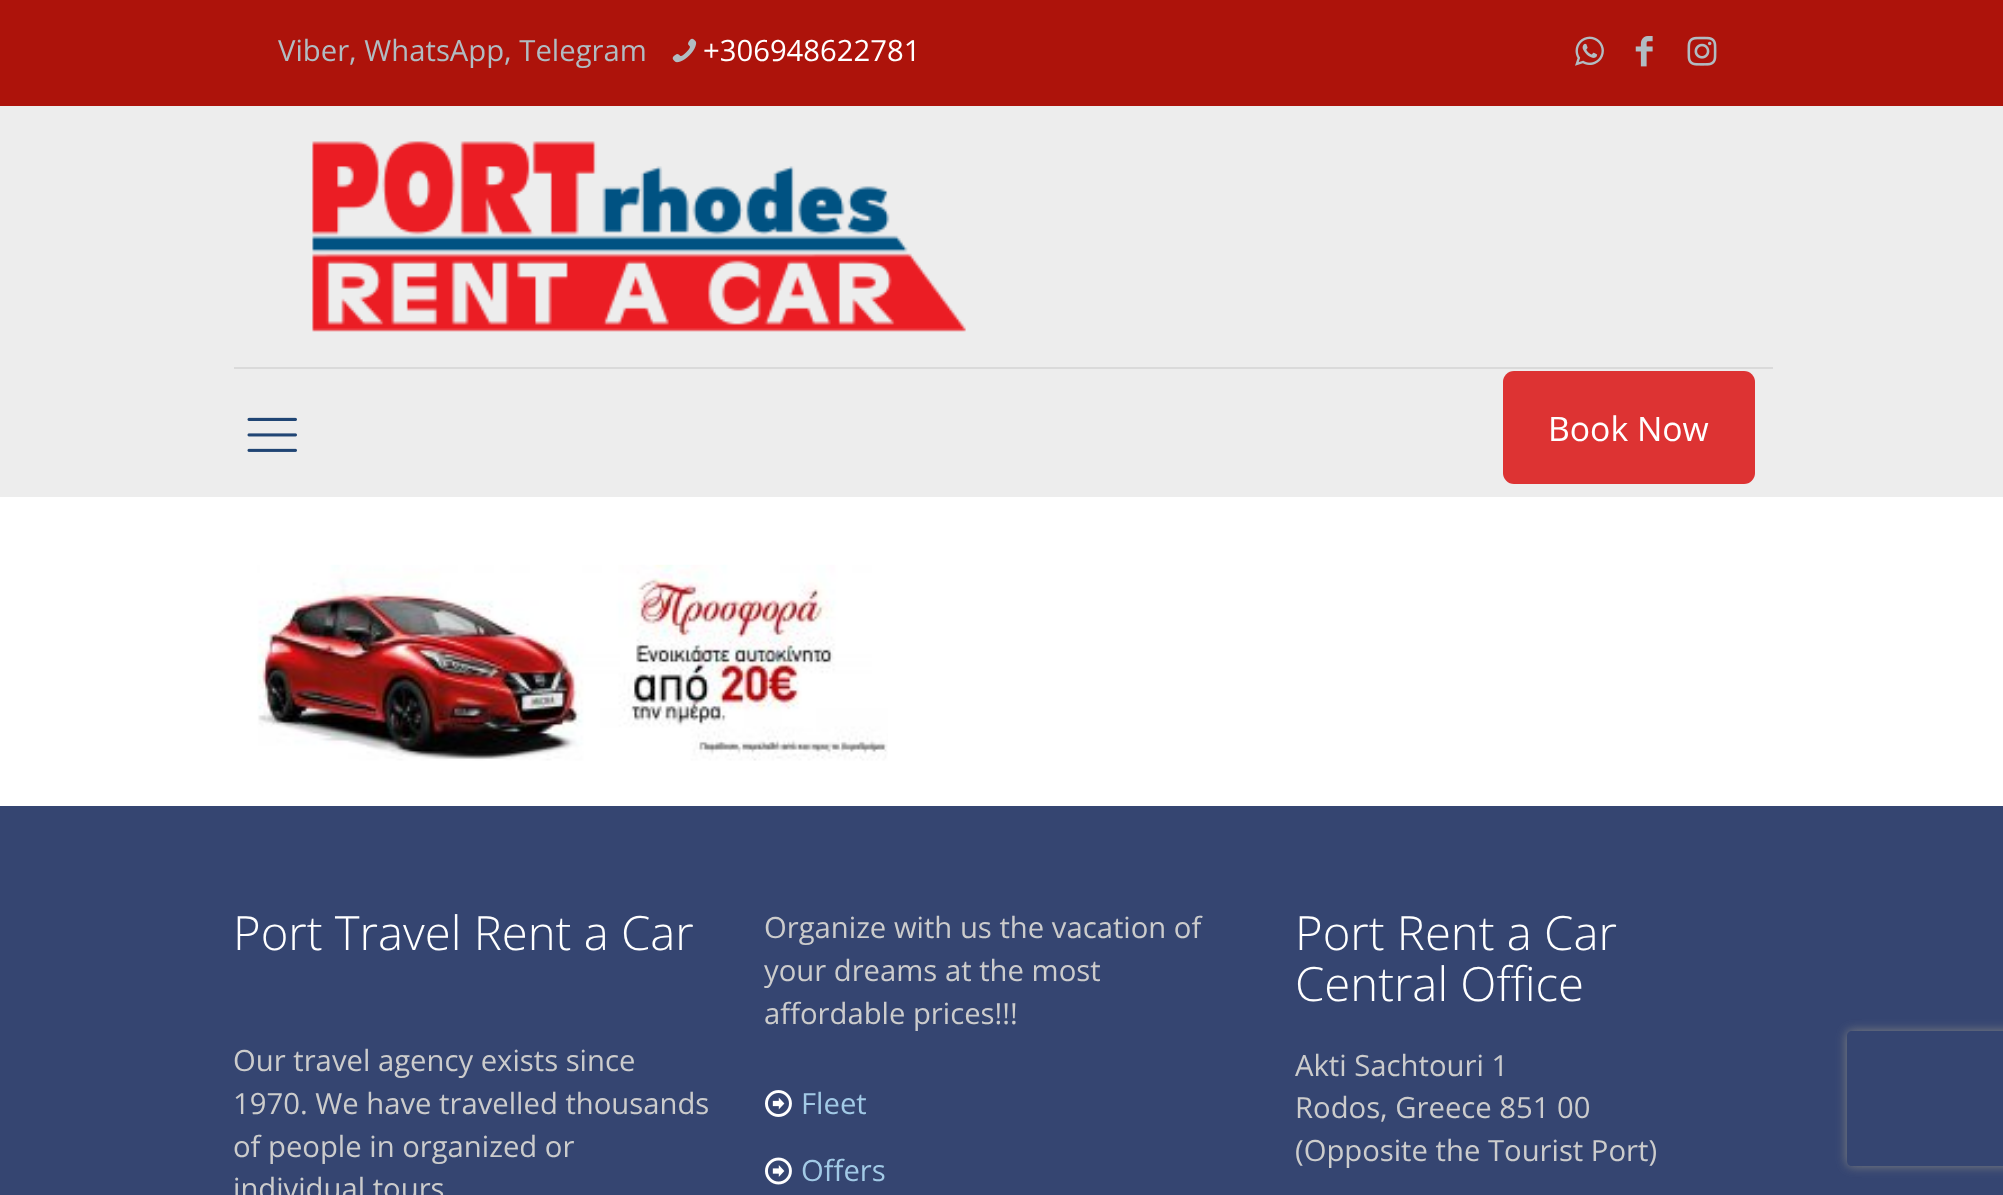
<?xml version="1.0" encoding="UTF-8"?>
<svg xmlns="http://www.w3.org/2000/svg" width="2003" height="1195">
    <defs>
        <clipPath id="clip1"><path d="M 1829 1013 H 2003 V 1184 H 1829 Z M 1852 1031 H 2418 C 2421 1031 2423 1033 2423 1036 V 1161 C 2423 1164 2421 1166 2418 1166 H 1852 C 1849 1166 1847 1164 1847 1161 V 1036 C 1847 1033 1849 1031 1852 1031 Z" clip-rule="evenodd"/></clipPath>
        <filter id="blur1" x="-50%" y="-200%" width="200%" height="500%"><feGaussianBlur stdDeviation="5.5"/></filter>
    </defs>
    <rect width="100%" height="100%" fill="#FFFFFF"/>
    <rect x="0" y="0" width="2003" height="106" fill="#AD130B"/>
    <text x="278" y="61" font-family="Open Sans" font-size="29.25" fill="#B1BCC2">Viber, WhatsApp, Telegram</text>
    <image x="672" y="38" width="25" height="25" href="img_01.png"/>
    <text x="703" y="61" font-family="Open Sans" font-size="29.25" fill="#FFFFFF">+306948622781</text>
    <image x="1575" y="36" width="29" height="30" href="img_02.png"/>
    <image x="1635" y="36" width="18" height="31" href="img_03.png"/>
    <image x="1687" y="36" width="30" height="30" href="img_04.png"/>
    <rect x="0" y="106" width="2003" height="391" fill="#EDEDED"/>
    <rect x="234" y="367" width="1539" height="2" fill="#DADADA"/>
    <image x="312" y="141" width="654" height="191" href="img_05.png"/>
    <image x="247" y="417" width="50" height="35" href="img_06.png"/>
    <rect x="1503" y="371" width="252" height="113" rx="11" fill="#DD3333"/>
    <text x="1548" y="441" font-family="Open Sans" font-size="33.75" fill="#FFFFFF">Book Now</text>
    <image x="257" y="564" width="631" height="197" href="img_07.png"/>
    <rect x="0" y="806" width="2003" height="389" fill="#354571"/>
    <text x="233" y="950" font-family="Open Sans" font-size="47.25" font-weight="300" fill="#FFFFFF">Port Travel Rent a Car</text>
    <text font-family="Open Sans" font-size="29.25" fill="#CCCCCC">
        <tspan x="233" y="1071">Our travel agency exists since</tspan>
        <tspan x="233" y="1114">1970. We have travelled thousands</tspan>
        <tspan x="233" y="1157">of people in organized or</tspan>
        <tspan x="233" y="1199">individual tours</tspan>
    </text>
    <text font-family="Open Sans" font-size="29.25" fill="#CCCCCC">
        <tspan x="764" y="938">Organize with us the vacation of</tspan>
        <tspan x="764" y="981">your dreams at the most</tspan>
        <tspan x="764" y="1024">affordable prices!!!</tspan>
    </text>
    <image x="765" y="1090" width="27" height="27" href="img_08.png"/>
    <text x="801" y="1114" font-family="Open Sans" font-size="29.25" fill="#A2CAE6">Fleet</text>
    <image x="765" y="1157" width="27" height="28" href="img_09.png"/>
    <text x="801" y="1181" font-family="Open Sans" font-size="29.25" fill="#A2CAE6">Offers</text>
    <text font-family="Open Sans" font-size="47.25" font-weight="300" fill="#FFFFFF">
        <tspan x="1295" y="950">Port Rent a Car</tspan>
        <tspan x="1295" y="1001">Central Office</tspan>
    </text>
    <text font-family="Open Sans" font-size="29.25" fill="#CCCCCC">
        <tspan x="1295" y="1076">Akti Sachtouri 1</tspan>
        <tspan x="1295" y="1118">Rodos, Greece 851 00</tspan>
        <tspan x="1295" y="1161">(Opposite the Tourist Port)</tspan>
    </text>
    <g clip-path="url(#clip1)">
        <rect x="1847" y="1031" width="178" height="135" rx="5" fill="#808080" filter="url(#blur1)"/>
    </g>
</svg>
